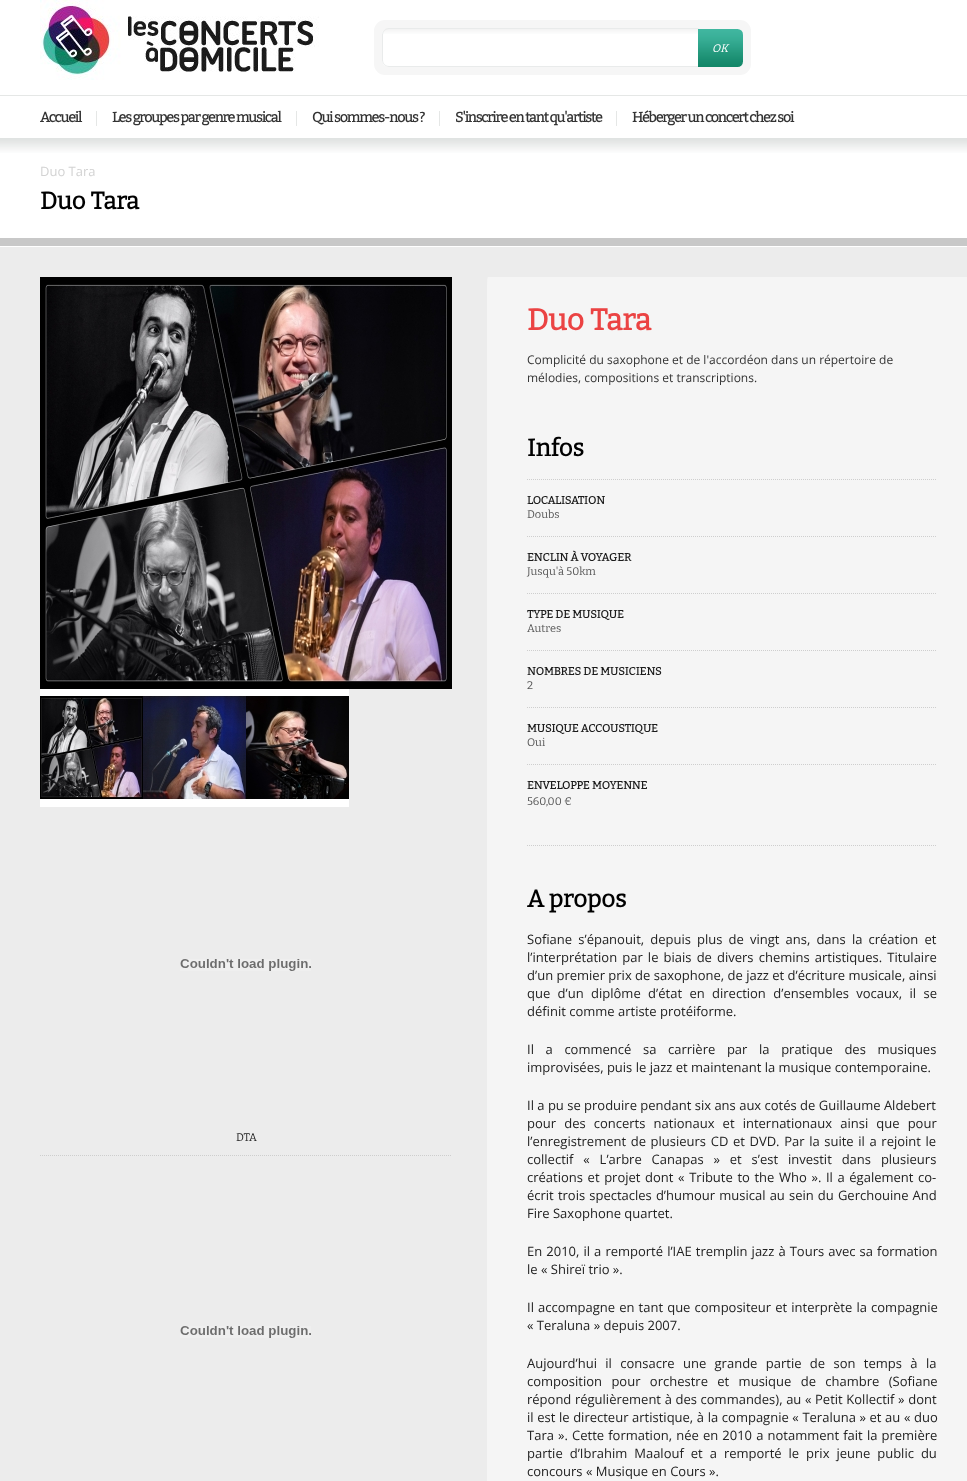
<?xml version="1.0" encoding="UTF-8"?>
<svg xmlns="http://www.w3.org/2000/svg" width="967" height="1481">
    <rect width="100%" height="100%" fill="#FFFFFF"/>
    <rect x="0" y="95" width="967" height="1" fill="#E5E7E6"/>
    <image x="40" y="0" width="279" height="80" href="img_01.png"/>
    <rect x="374" y="20" width="377" height="55" rx="11" fill="#F6F6F6"/>
    <path d="M 389 28 H 699 V 67 H 389 C 385 67 382 64 382 60 V 35 C 382 31 385 28 389 28 Z" fill="#FFFFFF"/>
    <image x="383" y="28" width="315" height="6" href="img_02.png"/>
    <path d="M 389 28.5 H 698.5 V 66.5 H 389 C 385.5 66.5 382.5 63.5 382.5 60 V 35 C 382.5 31.5 385.5 28.5 389 28.5 Z" fill="none" stroke="#E9EBEB"/>
    <image x="698" y="29" width="45" height="38" href="img_03.png"/>
    <text x="712" y="52" font-family="Bitter" font-size="11" font-weight="100" font-style="italic" fill="#FFFFFF">OK</text>
    <text x="40" y="122" font-family="Bitter" font-size="14" font-weight="700" letter-spacing="-1" fill="#333333">Accueil</text>
    <rect x="96" y="111" width="1" height="15" fill="#E5E7E6"/>
    <text x="112" y="122" font-family="Bitter" font-size="14" font-weight="700" letter-spacing="-1" fill="#333333">Les groupes par genre musical</text>
    <rect x="296" y="111" width="1" height="15" fill="#E5E7E6"/>
    <text x="312" y="122" font-family="Bitter" font-size="14" font-weight="700" letter-spacing="-1" fill="#333333">Qui sommes-nous ?</text>
    <rect x="439" y="111" width="1" height="15" fill="#E5E7E6"/>
    <text x="455" y="122" font-family="Bitter" font-size="14" font-weight="700" letter-spacing="-1" fill="#333333">S'inscrire en tant qu'artiste</text>
    <rect x="616" y="111" width="1" height="15" fill="#E5E7E6"/>
    <text x="632" y="122" font-family="Bitter" font-size="14" font-weight="700" letter-spacing="-1" fill="#333333">Héberger un concert chez soi</text>
    <image x="0" y="138" width="967" height="15" href="img_04.png"/>
    <rect x="0" y="238" width="967" height="8" fill="#C8C8C8"/>
    <text x="40" y="176" font-family="Open Sans" font-size="13" fill="#D3D3D3">Duo Tara</text>
    <text x="40" y="209" font-family="Bitter" font-size="24" font-weight="700" fill="#000000">Duo Tara</text>
    <rect x="0" y="247" width="967" height="1234" fill="#ECECEC"/>
    <image x="40" y="277" width="412" height="412" href="img_05.png"/>
    <image x="40" y="689" width="103" height="118" href="img_06.png"/>
    <image x="143" y="689" width="103" height="118" href="img_07.png"/>
    <image x="246" y="689" width="103" height="118" href="img_08.png"/>
    <image x="180" y="959" width="131" height="12" href="img_09.png"/>
    <path d="M 40 1155.5 H 452" fill="none" stroke="#CECECE" stroke-dasharray="1 1"/>
    <text x="236" y="1141" font-family="Bitter" font-size="11" font-weight="100" fill="#222222">DTA</text>
    <image x="180" y="1326" width="131" height="12" href="img_09.png"/>
    <path d="M 488 277 H 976 C 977 277 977 284 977 293 V 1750 C 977 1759 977 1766 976 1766 H 488 C 487 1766 487 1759 487 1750 V 293 C 487 284 487 277 488 277 Z" fill="#F5F5F5"/>
    <text x="527" y="330" font-family="Bitter" font-size="30" font-weight="700" fill="#EB4343">Duo Tara</text>
    <text font-family="Open Sans" font-size="12" fill="#333333">
        <tspan x="527" y="364">Complicité du saxophone et de l'accordéon dans un répertoire de</tspan>
        <tspan x="527" y="382">mélodies, compositions et transcriptions.</tspan>
    </text>
    <text x="527" y="456" font-family="Bitter" font-size="24" font-weight="700" fill="#000000">Infos</text>
    <path d="M 527 479.5 H 937" fill="none" stroke="#CECECE" stroke-dasharray="1 1"/>
    <text x="527" y="504" font-family="Bitter" font-size="11" font-weight="700" fill="#1B1B1B">LOCALISATION</text>
    <text x="527" y="518" font-family="Bitter" font-size="11" font-weight="100" fill="#565656">Doubs</text>
    <path d="M 527 536.5 H 937" fill="none" stroke="#CECECE" stroke-dasharray="1 1"/>
    <text x="527" y="561" font-family="Bitter" font-size="11" font-weight="700" fill="#1B1B1B">ENCLIN À VOYAGER</text>
    <text x="527" y="575" font-family="Bitter" font-size="11" font-weight="100" fill="#565656">Jusqu'à 50km</text>
    <path d="M 527 593.5 H 937" fill="none" stroke="#CECECE" stroke-dasharray="1 1"/>
    <text x="527" y="618" font-family="Bitter" font-size="11" font-weight="700" fill="#1B1B1B">TYPE DE MUSIQUE</text>
    <text x="527" y="632" font-family="Bitter" font-size="11" font-weight="100" fill="#565656">Autres</text>
    <path d="M 527 650.5 H 937" fill="none" stroke="#CECECE" stroke-dasharray="1 1"/>
    <text x="527" y="675" font-family="Bitter" font-size="11" font-weight="700" fill="#1B1B1B">NOMBRES DE MUSICIENS</text>
    <text x="527" y="689" font-family="Bitter" font-size="11" font-weight="100" fill="#565656">2</text>
    <path d="M 527 707.5 H 937" fill="none" stroke="#CECECE" stroke-dasharray="1 1"/>
    <text x="527" y="732" font-family="Bitter" font-size="11" font-weight="700" fill="#1B1B1B">MUSIQUE ACCOUSTIQUE</text>
    <text x="527" y="746" font-family="Bitter" font-size="11" font-weight="100" fill="#565656">Oui</text>
    <path d="M 527 764.5 H 937" fill="none" stroke="#CECECE" stroke-dasharray="1 1"/>
    <text x="527" y="789" font-family="Bitter" font-size="11" font-weight="700" fill="#1B1B1B">ENVELOPPE MOYENNE</text>
    <text x="527" y="805" font-family="Bitter" font-size="11" font-weight="100" fill="#565656">560,00 €</text>
    <path d="M 527 845.5 H 937" fill="none" stroke="#CECECE" stroke-dasharray="1 1"/>
    <text x="527" y="907" font-family="Bitter" font-size="24" font-weight="700" fill="#000000">A propos</text>
    <text font-family="Open Sans" font-size="13" fill="#222222">
        <tspan x="527" y="944" word-spacing="2.75">Sofiane s’épanouit, depuis plus de vingt ans, dans la création et</tspan>
        <tspan x="527" y="962" word-spacing="1.75">l’interprétation par le biais de divers chemins artistiques. Titulaire</tspan>
        <tspan x="527" y="980">d’un premier prix de saxophone, de jazz et d’écriture musicale, ainsi</tspan>
        <tspan x="527" y="998" word-spacing="4">que d’un diplôme d’état en direction d’ensembles vocaux, il se</tspan>
        <tspan x="527" y="1016">définit comme artiste protéiforme.</tspan>
    </text>
    <text font-family="Open Sans" font-size="13" fill="#222222">
        <tspan x="527" y="1054" word-spacing="8.25">Il a commencé sa carrière par la pratique des musiques</tspan>
        <tspan x="527" y="1072">improvisées, puis le jazz et maintenant la musique contemporaine.</tspan>
    </text>
    <text font-family="Open Sans" font-size="13" fill="#222222">
        <tspan x="527" y="1110">Il a pu se produire pendant six ans aux cotés de Guillaume Aldebert</tspan>
        <tspan x="527" y="1128" word-spacing="4.75">pour des concerts nationaux et internationaux ainsi que pour</tspan>
        <tspan x="527" y="1146" word-spacing="1.25">l’enregistrement de plusieurs CD et DVD. Par la suite il a rejoint le</tspan>
        <tspan x="527" y="1164" word-spacing="6.5">collectif « L’arbre Canapas » et s’est investit dans plusieurs</tspan>
        <tspan x="527" y="1182" word-spacing="1.25">créations et projet dont « Tribute to the Who ». Il a également co-</tspan>
        <tspan x="527" y="1200" word-spacing="0.75">écrit trois spectacles d’humour musical au sein du Gerchouine And</tspan>
        <tspan x="527" y="1218">Fire Saxophone quartet.</tspan>
    </text>
    <text font-family="Open Sans" font-size="13" fill="#222222">
        <tspan x="527" y="1256" word-spacing="0.7">En 2010, il a remporté l’IAE tremplin jazz à Tours avec sa formation</tspan>
        <tspan x="527" y="1274">le « Shireï trio ».</tspan>
    </text>
    <text font-family="Open Sans" font-size="13" fill="#222222">
        <tspan x="527" y="1312" word-spacing="0.75">Il accompagne en tant que compositeur et interprète la compagnie</tspan>
        <tspan x="527" y="1330">« Teraluna » depuis 2007.</tspan>
    </text>
    <text font-family="Open Sans" font-size="13" fill="#222222">
        <tspan x="527" y="1368" word-spacing="5">Aujourd’hui il consacre une grande partie de son temps à la</tspan>
        <tspan x="527" y="1386" word-spacing="6">composition pour orchestre et musique de chambre (Sofiane</tspan>
        <tspan x="527" y="1404" word-spacing="0.25">répond régulièrement à des commandes), au « Petit Kollectif » dont</tspan>
        <tspan x="527" y="1422" word-spacing="0.25">il est le directeur artistique, à la compagnie « Teraluna » et au « duo</tspan>
        <tspan x="527" y="1440" word-spacing="0.75">Tara ». Cette formation, née en 2010 a notamment fait la première</tspan>
        <tspan x="527" y="1458" word-spacing="3.6">partie d’Ibrahim Maalouf et a remporté le prix jeune public du</tspan>
        <tspan x="527" y="1476">concours « Musique en Cours ».</tspan>
    </text>
</svg>
